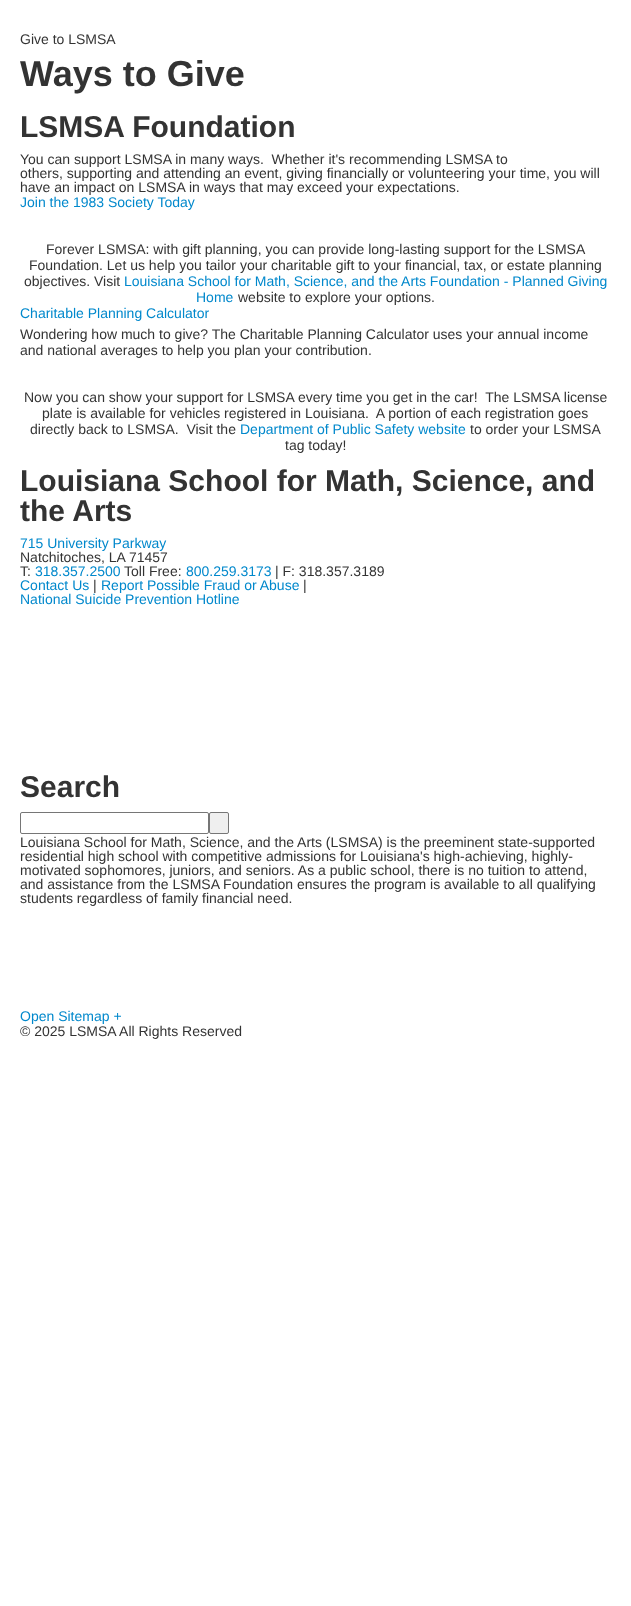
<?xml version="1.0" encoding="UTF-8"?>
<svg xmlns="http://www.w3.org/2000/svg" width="631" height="1606">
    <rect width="100%" height="100%" fill="#FFFFFF"/>
    <text x="20" y="44" font-family="Liberation Sans" font-size="14" fill="#333333">Give to LSMSA</text>
    <text x="20" y="86" font-family="Liberation Sans" font-size="36" font-weight="700" fill="#333333">Ways to Give</text>
    <text x="20" y="137" font-family="Liberation Sans" font-size="30" font-weight="700" fill="#333333">LSMSA Foundation</text>
    <text font-family="Liberation Sans" font-size="14" fill="#333333" xml:space="preserve"><tspan x="20" y="164">You can support LSMSA in many ways.  Whether it's recommending LSMSA to</tspan><tspan x="20" y="178">others, supporting and attending an event, giving financially or volunteering your time, you will</tspan><tspan x="20" y="192">have an impact on LSMSA in ways that may exceed your expectations.</tspan></text>
    <text x="20" y="207" font-family="Liberation Sans" font-size="14" fill="#0088CC">Join the 1983 Society Today</text>
    <text x="46" y="254" font-family="Liberation Sans" font-size="14" fill="#333333">Forever LSMSA: with gift planning, you can provide long-lasting support for the LSMSA</text>
    <text x="29" y="270" font-family="Liberation Sans" font-size="14" fill="#333333">Foundation. Let us help you tailor your charitable gift to your financial, tax, or estate planning</text>
    <text x="24" y="286" font-family="Liberation Sans" font-size="14" fill="#333333">objectives. Visit</text>
    <text x="124" y="286" font-family="Liberation Sans" font-size="14" fill="#0088CC">Louisiana School for Math, Science, and the Arts Foundation - Planned Giving</text>
    <text x="196" y="302" font-family="Liberation Sans" font-size="14" fill="#0088CC">Home</text>
    <text x="238" y="302" font-family="Liberation Sans" font-size="14" fill="#333333">website to explore your options.</text>
    <text x="20" y="318" font-family="Liberation Sans" font-size="14" fill="#0088CC">Charitable Planning Calculator</text>
    <text font-family="Liberation Sans" font-size="14" fill="#333333">
        <tspan x="20" y="339">Wondering how much to give? The Charitable Planning Calculator uses your annual income</tspan>
        <tspan x="20" y="355">and national averages to help you plan your contribution.</tspan>
    </text>
    <text x="24" y="402" font-family="Liberation Sans" font-size="14" fill="#333333" xml:space="preserve">Now you can show your support for LSMSA every time you get in the car!  The LSMSA license</text>
    <text x="42" y="418" font-family="Liberation Sans" font-size="14" fill="#333333" xml:space="preserve">plate is available for vehicles registered in Louisiana.  A portion of each registration goes</text>
    <text x="30" y="434" font-family="Liberation Sans" font-size="14" fill="#333333" xml:space="preserve">directly back to LSMSA.  Visit the</text>
    <text x="240" y="434" font-family="Liberation Sans" font-size="14" fill="#0088CC">Department of Public Safety website</text>
    <text x="470" y="434" font-family="Liberation Sans" font-size="14" fill="#333333">to order your LSMSA</text>
    <text x="285" y="450" font-family="Liberation Sans" font-size="14" fill="#333333">tag today!</text>
    <text font-family="Liberation Sans" font-size="30" font-weight="700" fill="#333333">
        <tspan x="20" y="491">Louisiana School for Math, Science, and</tspan>
        <tspan x="20" y="521">the Arts</tspan>
    </text>
    <text x="20" y="548" font-family="Liberation Sans" font-size="14" fill="#0088CC">715 University Parkway</text>
    <text font-family="Liberation Sans" font-size="14" fill="#333333">
        <tspan x="20" y="562">Natchitoches, LA 71457</tspan>
        <tspan x="20" y="576">T:</tspan>
    </text>
    <text x="35" y="576" font-family="Liberation Sans" font-size="14" fill="#0088CC">318.357.2500</text>
    <text x="124" y="576" font-family="Liberation Sans" font-size="14" fill="#333333">Toll Free:</text>
    <text x="186" y="576" font-family="Liberation Sans" font-size="14" fill="#0088CC">800.259.3173</text>
    <text x="275" y="576" font-family="Liberation Sans" font-size="14" fill="#333333">| F: 318.357.3189</text>
    <text x="20" y="590" font-family="Liberation Sans" font-size="14" fill="#0088CC">Contact Us</text>
    <text x="93" y="590" font-family="Liberation Sans" font-size="14" fill="#333333">|</text>
    <text x="101" y="590" font-family="Liberation Sans" font-size="14" fill="#0088CC">Report Possible Fraud or Abuse</text>
    <text x="303" y="590" font-family="Liberation Sans" font-size="14" fill="#333333">|</text>
    <text x="20" y="604" font-family="Liberation Sans" font-size="14" fill="#0088CC">National Suicide Prevention Hotline</text>
    <text x="20" y="797" font-family="Liberation Sans" font-size="30" font-weight="700" fill="#333333">Search</text>
    <rect x="20.5" y="812.5" width="188" height="21" rx="1.5" fill="none" stroke="#767676"/>
    <rect x="209.5" y="812.5" width="19" height="21" rx="1.5" fill="#EFEFEF" stroke="#767676"/>
    <text font-family="Liberation Sans" font-size="14" fill="#333333">
        <tspan x="20" y="847">Louisiana School for Math, Science, and the Arts (LSMSA) is the preeminent state-supported</tspan>
        <tspan x="20" y="861">residential high school with competitive admissions for Louisiana's high-achieving, highly-</tspan>
        <tspan x="20" y="875">motivated sophomores, juniors, and seniors. As a public school, there is no tuition to attend,</tspan>
        <tspan x="20" y="889">and assistance from the LSMSA Foundation ensures the program is available to all qualifying</tspan>
        <tspan x="20" y="903">students regardless of family financial need.</tspan>
    </text>
    <text x="20" y="1021" font-family="Liberation Sans" font-size="14" fill="#0088CC">Open Sitemap +</text>
    <text x="20" y="1036" font-family="Liberation Sans" font-size="14" fill="#333333">© 2025 LSMSA All Rights Reserved</text>
</svg>
